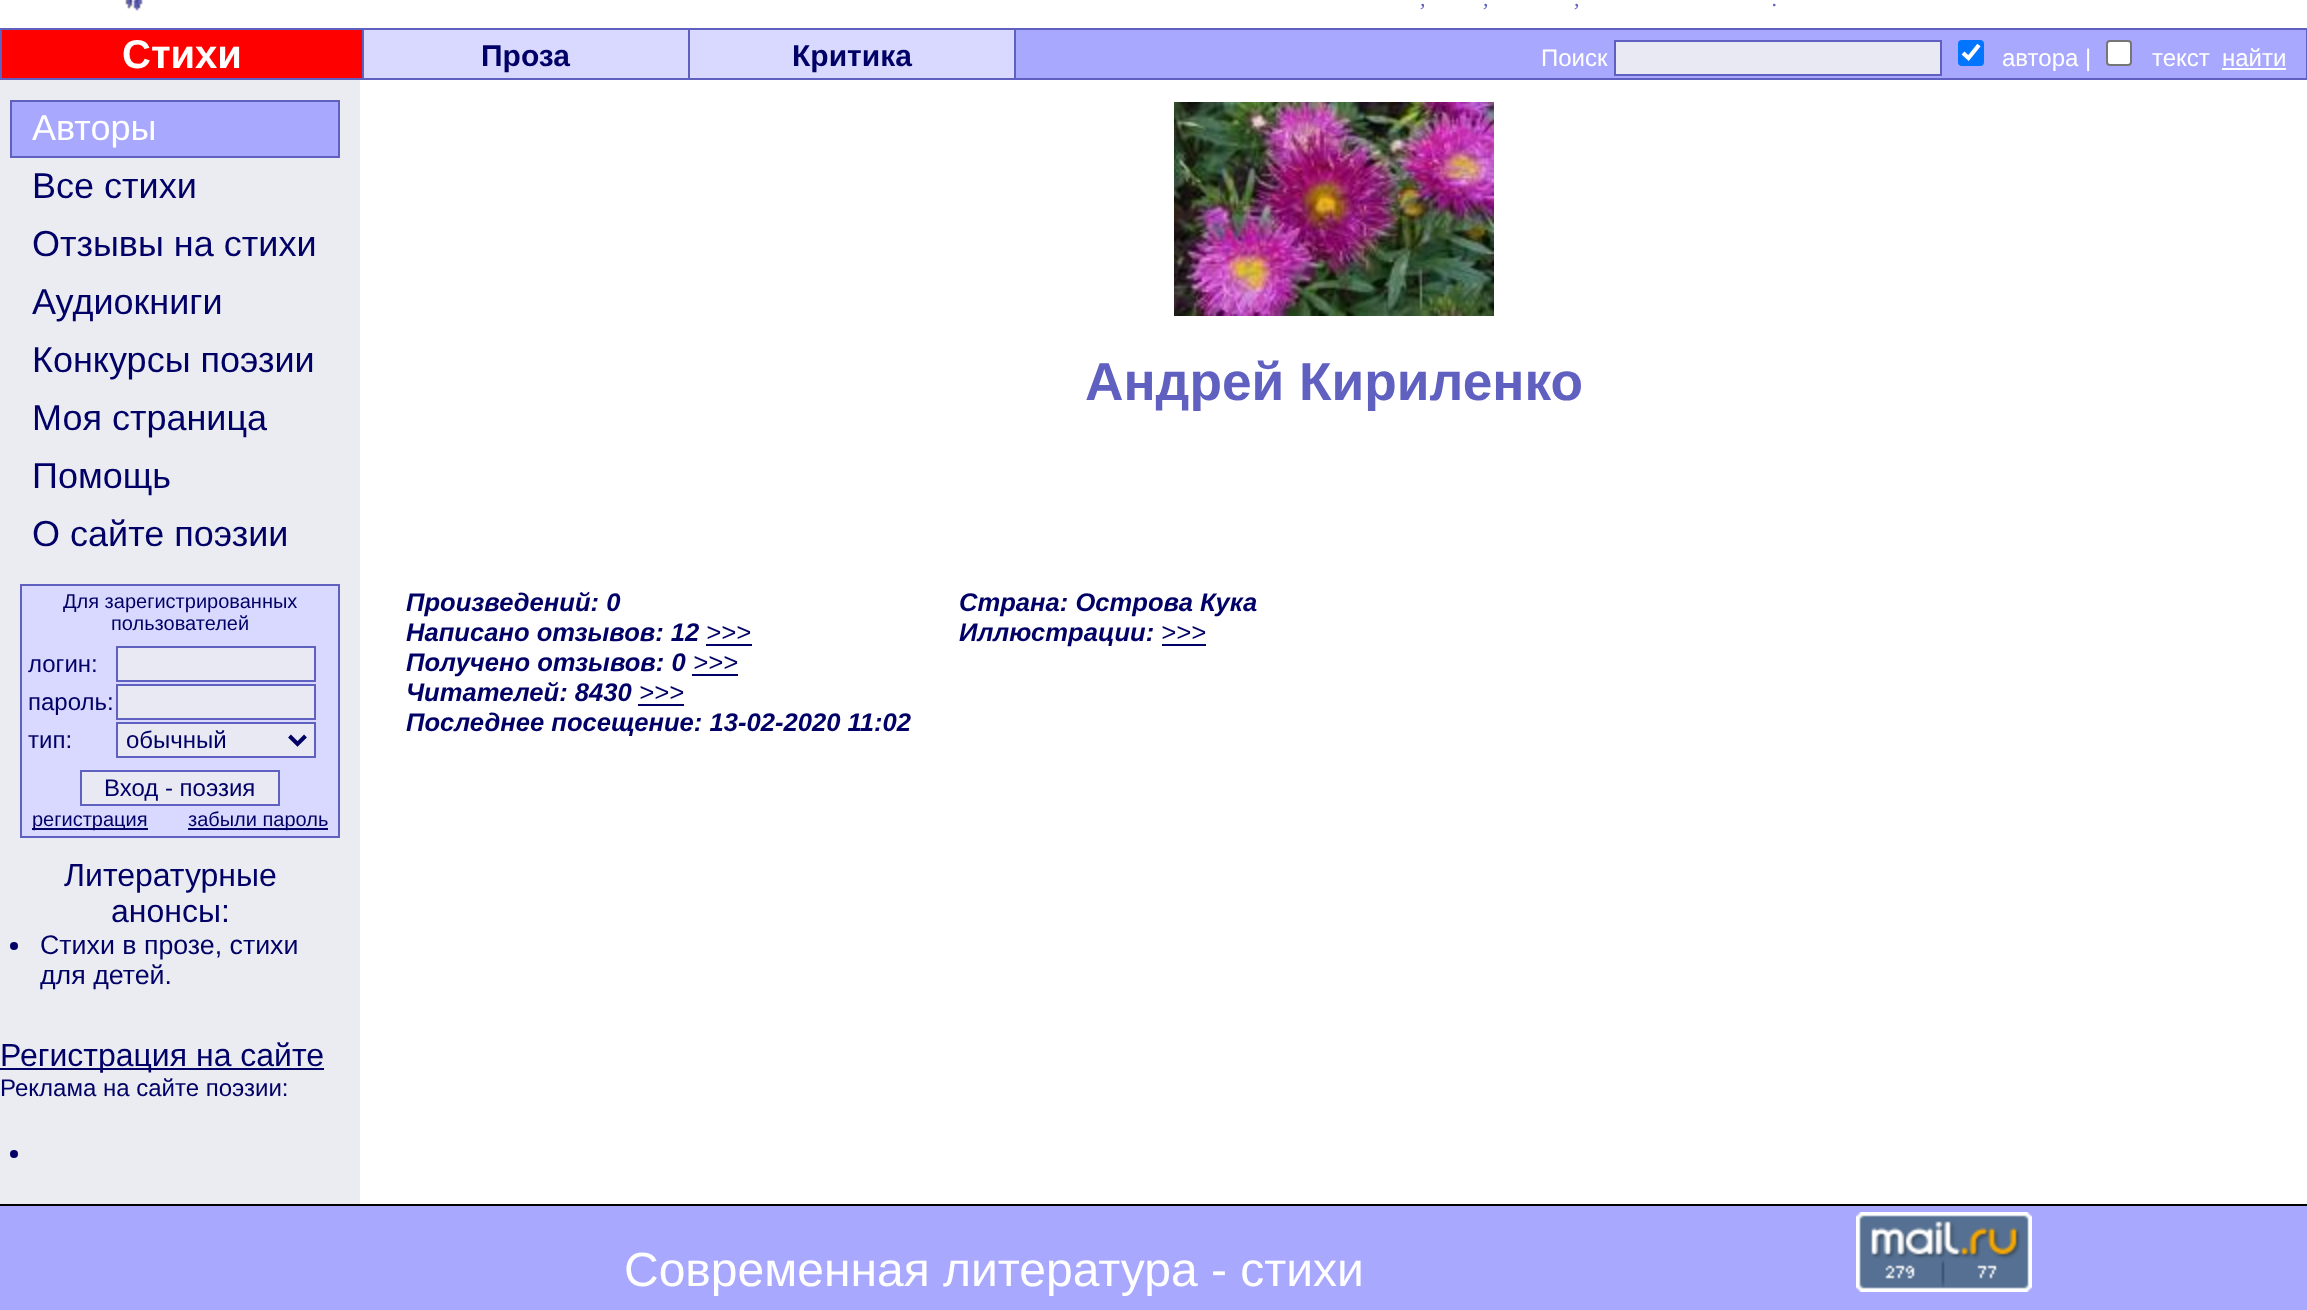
<?xml version="1.0" encoding="UTF-8"?>
<svg xmlns="http://www.w3.org/2000/svg" width="2307" height="1310">
    <rect width="100%" height="100%" fill="#FFFFFF"/>
    <image x="125" y="0" width="18" height="11" href="img_01.png"/>
    <text x="1420" y="6" font-family="Liberation Serif" font-size="22" font-style="italic" fill="#6060C0">,</text>
    <text x="1483" y="6" font-family="Liberation Serif" font-size="22" font-style="italic" fill="#6060C0">,</text>
    <text x="1574" y="6" font-family="Liberation Serif" font-size="22" font-style="italic" fill="#6060C0">,</text>
    <text x="1772" y="6" font-family="Liberation Serif" font-size="22" font-style="italic" fill="#6060C0">.</text>
    <rect x="0" y="28" width="2307" height="52" fill="#6060C0"/>
    <rect x="2" y="30" width="360" height="48" fill="#FF0000"/>
    <text x="122" y="68" font-family="Liberation Sans" font-size="40" font-weight="700" fill="#FFFFFF">Стихи</text>
    <rect x="364" y="30" width="324" height="48" fill="#D9D9FF"/>
    <text x="481" y="66" font-family="Liberation Sans" font-size="30" font-weight="700" fill="#000066">Проза</text>
    <rect x="690" y="30" width="324" height="48" fill="#D9D9FF"/>
    <text x="792" y="66" font-family="Liberation Sans" font-size="30" font-weight="700" fill="#000066">Критика</text>
    <rect x="1016" y="30" width="1290" height="48" fill="#A8A8FF"/>
    <text x="1541" y="66" font-family="Liberation Sans" font-size="24" fill="#FFFFFF">Поиск</text>
    <rect x="1615" y="41" width="326" height="34" fill="#E9E9F3" stroke="#6060C0" stroke-width="2"/>
    <rect x="1958" y="40" width="26" height="26" rx="4" fill="#0075FF"/>
    <path d="M 1963 53 L 1968.5 58 L 1979 45" fill="none" stroke="#FFFFFF" stroke-width="4.2"/>
    <text x="2002" y="66" font-family="Liberation Sans" font-size="24" fill="#FFFFFF">автора |</text>
    <rect x="2107" y="41" width="24" height="24" rx="3" fill="#FFFFFF" stroke="#767676" stroke-width="2"/>
    <text x="2152" y="66" font-family="Liberation Sans" font-size="24" fill="#FFFFFF">текст</text>
    <text x="2222" y="66" font-family="Liberation Sans" font-size="24" fill="#FFFFFF">найти</text>
    <rect x="2222" y="68" width="64" height="2" fill="#FFFFFF"/>
    <rect x="0" y="80" width="360" height="1124" fill="#EBECF1"/>
    <rect x="11" y="101" width="328" height="56" fill="#A8A8FF" stroke="#6060C0" stroke-width="2"/>
    <text x="32" y="140" font-family="Liberation Sans" font-size="36" fill="#FFFFFF">Авторы</text>
    <text font-family="Liberation Sans" font-size="36" fill="#000066">
        <tspan x="32" y="198">Все стихи</tspan>
        <tspan x="32" y="256">Отзывы на стихи</tspan>
        <tspan x="32" y="314">Аудиокниги</tspan>
        <tspan x="32" y="372">Конкурсы поэзии</tspan>
        <tspan x="32" y="430">Моя страница</tspan>
        <tspan x="32" y="488">Помощь</tspan>
        <tspan x="32" y="546">О сайте поэзии</tspan>
    </text>
    <rect x="21" y="585" width="318" height="252" fill="#D9D9FF" stroke="#6060C0" stroke-width="2"/>
    <text x="63" y="608" font-family="Liberation Sans" font-size="20" fill="#000066">Для зарегистрированных</text>
    <text x="111" y="630" font-family="Liberation Sans" font-size="20" fill="#000066">пользователей</text>
    <text x="28" y="672" font-family="Liberation Sans" font-size="24" fill="#000066">логин:</text>
    <rect x="117" y="647" width="198" height="34" fill="#E9E9F3" stroke="#6060C0" stroke-width="2"/>
    <text x="28" y="710" font-family="Liberation Sans" font-size="24" fill="#000066">пароль:</text>
    <rect x="117" y="685" width="198" height="34" fill="#E9E9F3" stroke="#6060C0" stroke-width="2"/>
    <text x="28" y="748" font-family="Liberation Sans" font-size="24" fill="#000066">тип:</text>
    <rect x="117" y="723" width="198" height="34" fill="#E9E9F3" stroke="#6060C0" stroke-width="2"/>
    <path d="M 289.5 736 L 297.5 744 L 305.5 736" fill="none" stroke="#000066" stroke-width="4"/>
    <text x="126" y="748" font-family="Liberation Sans" font-size="24" fill="#000066">обычный</text>
    <rect x="81" y="771" width="198" height="34" fill="#E9E9F3" stroke="#6060C0" stroke-width="2"/>
    <text x="104" y="796" font-family="Liberation Sans" font-size="24" fill="#000066">Вход - поэзия</text>
    <rect x="32" y="828" width="116" height="2" fill="#000066"/>
    <text x="32" y="826" font-family="Liberation Sans" font-size="20" fill="#000066">регистрация</text>
    <rect x="188" y="828" width="140" height="2" fill="#000066"/>
    <text x="188" y="826" font-family="Liberation Sans" font-size="20" fill="#000066">забыли пароль</text>
    <text x="64" y="886" font-family="Liberation Sans" font-size="32" fill="#000066">Литературные</text>
    <text x="111" y="922" font-family="Liberation Sans" font-size="32" fill="#000066">анонсы:</text>
    <circle cx="14" cy="946" r="4" fill="#000066"/>
    <text font-family="Liberation Sans" font-size="26.75" fill="#000066">
        <tspan x="40" y="954">Стихи в прозе, стихи</tspan>
        <tspan x="40" y="984">для детей.</tspan>
    </text>
    <rect x="0" y="1068" width="324" height="2" fill="#000066"/>
    <text x="0" y="1066" font-family="Liberation Sans" font-size="32" fill="#000066">Регистрация на сайте</text>
    <text x="0" y="1096" font-family="Liberation Sans" font-size="24" fill="#000066">Реклама на сайте поэзии:</text>
    <circle cx="14" cy="1154" r="4" fill="#000066"/>
    <image x="1174" y="102" width="320" height="214" href="img_02.png"/>
    <text x="1085" y="400" font-family="Liberation Sans" font-size="53.25" font-weight="700" fill="#6060C0">Андрей Кириленко</text>
    <text font-family="Liberation Sans" font-size="25.6" font-weight="700" font-style="italic" fill="#000066">
        <tspan x="406" y="611">Произведений: 0</tspan>
        <tspan x="406" y="641">Написано отзывов: 12</tspan>
    </text>
    <text x="706" y="641" font-family="Liberation Sans" font-size="25.6" font-style="italic" fill="#000066">&gt;&gt;&gt;</text>
    <rect x="706" y="644" width="46" height="2" fill="#000066"/>
    <text x="406" y="671" font-family="Liberation Sans" font-size="25.6" font-weight="700" font-style="italic" fill="#000066">Получено отзывов: 0</text>
    <text x="693" y="671" font-family="Liberation Sans" font-size="25.6" font-style="italic" fill="#000066">&gt;&gt;&gt;</text>
    <rect x="692" y="674" width="46" height="2" fill="#000066"/>
    <text x="406" y="701" font-family="Liberation Sans" font-size="25.6" font-weight="700" font-style="italic" fill="#000066">Читателей: 8430</text>
    <text x="639" y="701" font-family="Liberation Sans" font-size="25.6" font-style="italic" fill="#000066">&gt;&gt;&gt;</text>
    <rect x="638" y="704" width="46" height="2" fill="#000066"/>
    <text x="406" y="731" font-family="Liberation Sans" font-size="25.6" font-weight="700" font-style="italic" fill="#000066">Последнее посещение: 13-02-2020 11:02</text>
    <text font-family="Liberation Sans" font-size="25.6" font-weight="700" font-style="italic" fill="#000066">
        <tspan x="959" y="611">Страна: Острова Кука</tspan>
        <tspan x="959" y="641">Иллюстрации:</tspan>
    </text>
    <text x="1161" y="641" font-family="Liberation Sans" font-size="25.6" font-style="italic" fill="#000066">&gt;&gt;&gt;</text>
    <rect x="1162" y="644" width="44" height="2" fill="#000066"/>
    <rect x="0" y="1206" width="2307" height="104" fill="#A8A8FF"/>
    <rect x="0" y="1204" width="2307" height="2" fill="#000000"/>
    <text x="624" y="1286" font-family="Liberation Sans" font-size="48" fill="#FFFFFF">Современная литература - стихи</text>
    <image x="1856" y="1212" width="176" height="80" href="img_03.png"/>
</svg>
